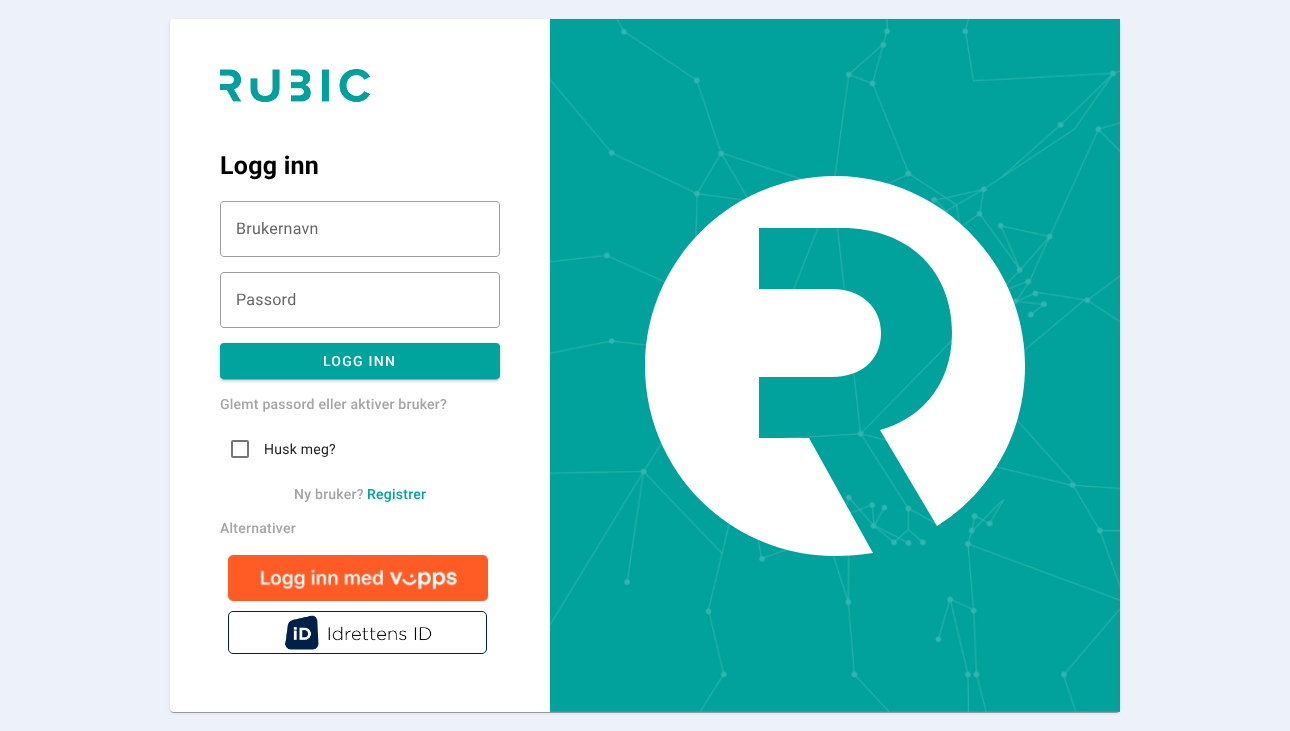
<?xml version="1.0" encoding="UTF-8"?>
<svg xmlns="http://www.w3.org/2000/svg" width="1290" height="731">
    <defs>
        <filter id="blur1" x="-50%" y="-200%" width="200%" height="500%"><feGaussianBlur stdDeviation="1.5"/></filter>
        <filter id="blur2" x="-50%" y="-200%" width="200%" height="500%"><feGaussianBlur stdDeviation="0.5"/></filter>
        <filter id="blur3" x="-50%" y="-200%" width="200%" height="500%"><feGaussianBlur stdDeviation="2.5"/></filter>
        <filter id="blur4" x="-50%" y="-200%" width="200%" height="500%"><feGaussianBlur stdDeviation="1"/></filter>
    </defs>
    <rect width="100%" height="100%" fill="#ECF1FA"/>
    <rect x="170" y="20" width="950" height="693" rx="4" fill="#000000" fill-opacity="0.12" filter="url(#blur1)"/>
    <rect x="170" y="20" width="950" height="693" rx="4" fill="#000000" fill-opacity="0.14" filter="url(#blur2)"/>
    <rect x="171" y="22" width="948" height="691" rx="3" fill="#000000" fill-opacity="0.2" filter="url(#blur2)"/>
    <rect x="170" y="19" width="950" height="693" rx="4" fill="#FFFFFF"/>
    <image x="220" y="69" width="150" height="33" href="img_01.png"/>
    <text x="220" y="174" font-family="Roboto" font-size="25" font-weight="700" letter-spacing="0.25" fill="#000000">Logg inn</text>
    <path d="M 224 201 H 232 V 257 H 224 C 222 257 220 255 220 253 V 205 C 220 203 222 201 224 201 Z M 224 202 H 232 V 256 H 224 C 222 256 221 255 221 253 V 205 C 221 203 222 202 224 202 Z" fill="#9E9E9E" fill-rule="evenodd"/>
    <rect x="232" y="201" width="82" height="1" fill="#9E9E9E"/>
    <rect x="232" y="256" width="82" height="1" fill="#9E9E9E"/>
    <path d="M 314 201 H 496 C 498 201 500 203 500 205 V 253 C 500 255 498 257 496 257 H 314 Z M 314 202 H 496 C 498 202 499 203 499 205 V 253 C 499 255 498 256 496 256 H 314 Z" fill="#9E9E9E" fill-rule="evenodd"/>
    <text x="236" y="234" font-family="Roboto" font-size="16" letter-spacing="0.25" fill="#666666">Brukernavn</text>
    <path d="M 224 272 H 232 V 328 H 224 C 222 328 220 326 220 324 V 276 C 220 274 222 272 224 272 Z M 224 273 H 232 V 327 H 224 C 222 327 221 326 221 324 V 276 C 221 274 222 273 224 273 Z" fill="#9E9E9E" fill-rule="evenodd"/>
    <rect x="232" y="272" width="60" height="1" fill="#9E9E9E"/>
    <rect x="232" y="327" width="60" height="1" fill="#9E9E9E"/>
    <path d="M 292 272 H 496 C 498 272 500 274 500 276 V 324 C 500 326 498 328 496 328 H 292 Z M 292 273 H 496 C 498 273 499 274 499 276 V 324 C 499 326 498 327 496 327 H 292 Z" fill="#9E9E9E" fill-rule="evenodd"/>
    <text x="236" y="305" font-family="Roboto" font-size="16" letter-spacing="0.25" fill="#666666">Passord</text>
    <rect x="220" y="344" width="280" height="36" rx="4" fill="#000000" fill-opacity="0.12" filter="url(#blur3)"/>
    <rect x="220" y="345" width="280" height="36" rx="4" fill="#000000" fill-opacity="0.14" filter="url(#blur4)"/>
    <rect x="222" y="348" width="276" height="32" rx="2" fill="#000000" fill-opacity="0.2" filter="url(#blur2)"/>
    <rect x="220" y="343" width="280" height="36" rx="4" fill="#00A49D"/>
    <text x="323" y="366" font-family="Roboto" font-size="14" font-weight="500" letter-spacing="1.25" fill="#FFFFFF">LOGG INN</text>
    <text x="220" y="409" font-family="Roboto" font-size="14" font-weight="500" letter-spacing="0.25" fill="#A5A5A5">Glemt passord eller aktiver bruker?</text>
    <rect x="232" y="441" width="16" height="16" rx="1" fill="none" stroke="#757575" stroke-width="2"/>
    <text x="264" y="454" font-family="Roboto" font-size="14" letter-spacing="0.25" fill="#212121">Husk meg?</text>
    <text x="294" y="499" font-family="Roboto" font-size="14" font-weight="500" letter-spacing="0.25" fill="#A5A5A5">Ny bruker?</text>
    <text x="367" y="499" font-family="Roboto" font-size="14" font-weight="500" letter-spacing="0.25" fill="#00A49D">Registrer</text>
    <text x="220" y="533" font-family="Roboto" font-size="14" font-weight="500" letter-spacing="0.25" fill="#A5A5A5">Alternativer</text>
    <image x="228" y="555" width="260" height="46" href="img_02.png"/>
    <rect x="228.5" y="611.5" width="258" height="42" rx="4.5" fill="none" stroke="#002147"/>
    <image x="285" y="615" width="147" height="35" href="img_03.png"/>
    <image x="550" y="19" width="570" height="693" href="img_04.png"/>
    <path d="M 1025 366 C 1025 262 940 176 835 176 C 730 176 645 262 645 366 C 645 471 730 556 835 556 C 848 556 860 555 873 553 L 809 438 H 759 V 377 H 832 C 860 377 881 361 881 333 C 881 306 860 289 832 289 H 759 V 228 H 842 C 910 228 952 272 952 333 C 952 390 915 421 880 430 L 937 526 C 990 493 1025 434 1025 366" fill="#FFFFFF"/>
</svg>
